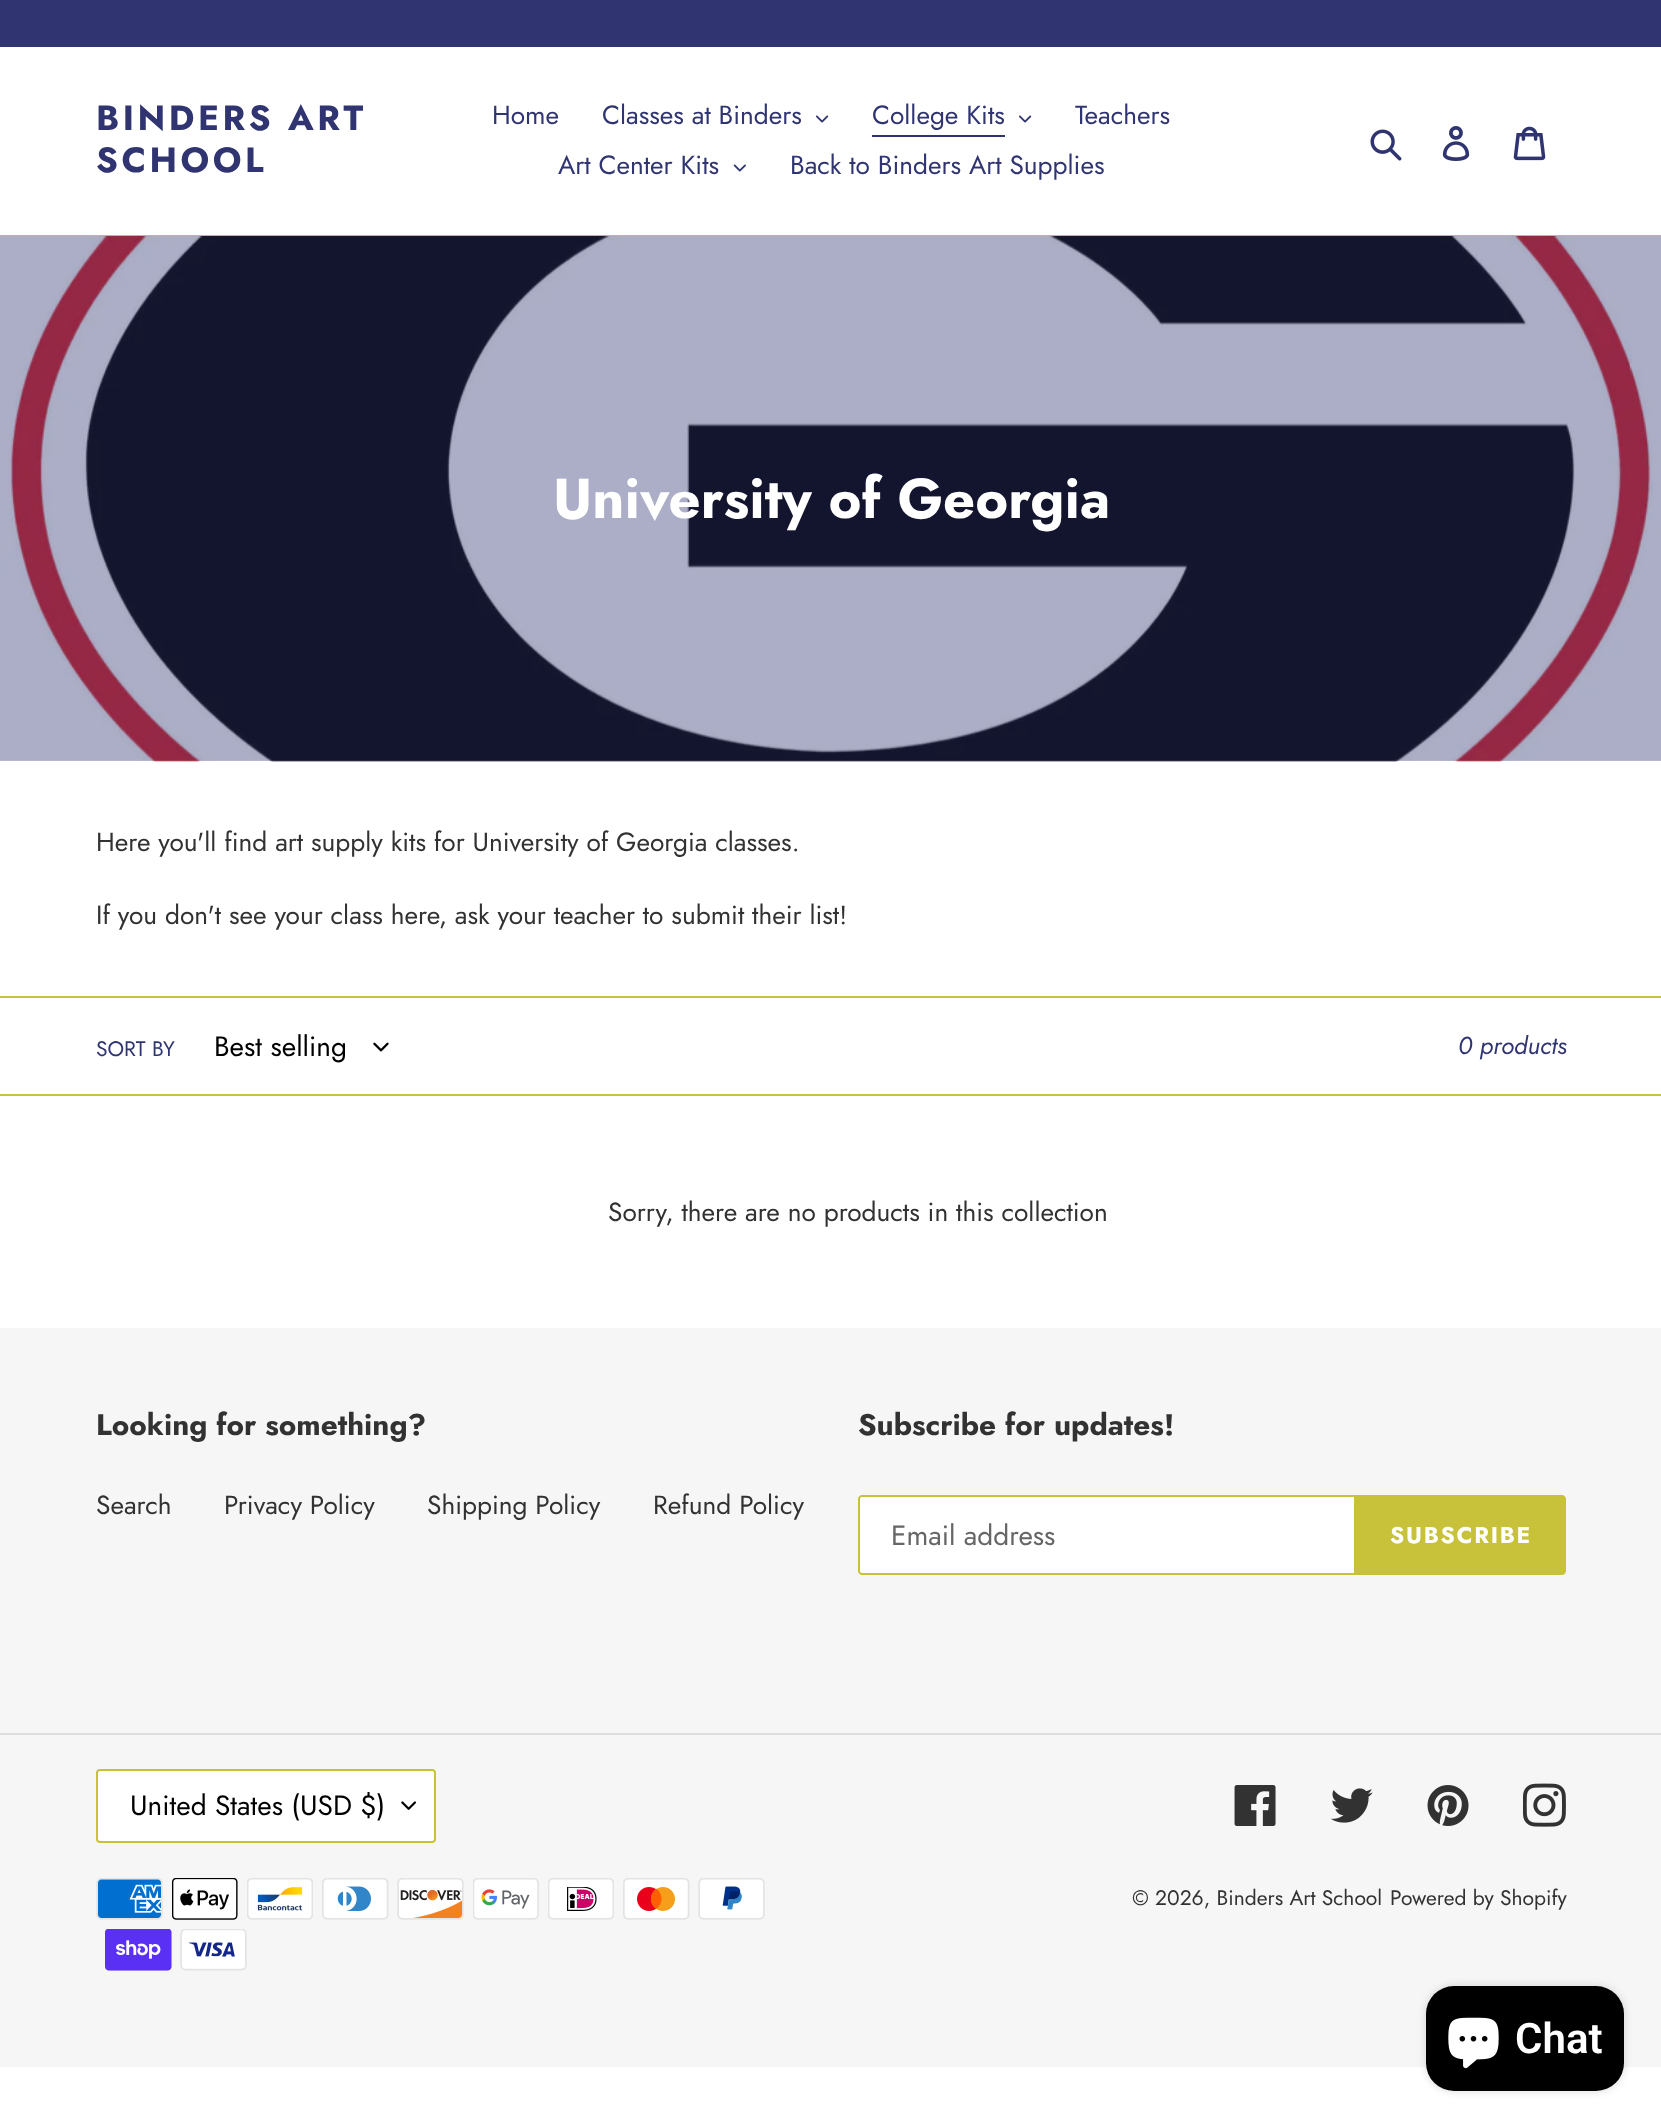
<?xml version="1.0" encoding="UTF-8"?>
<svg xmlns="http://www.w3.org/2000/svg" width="1661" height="2128">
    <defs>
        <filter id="blur1" x="-50%" y="-200%" width="200%" height="500%"><feGaussianBlur stdDeviation="4.5"/></filter>
    </defs>
    <rect width="100%" height="100%" fill="#FFFFFF"/>
    <rect x="0" y="0" width="1661" height="47" fill="#303572"/>
    <rect x="0" y="235" width="1661" height="1" fill="#C8C23B"/>
    <text font-family="Jost" font-size="35" font-weight="700" letter-spacing="3.5" fill="#303572">
        <tspan x="96" y="130">BINDERS ART</tspan>
        <tspan x="96" y="172">SCHOOL</tspan>
    </text>
    <text x="492" y="124" font-family="Jost" font-size="26.25" fill="#303572">Home</text>
    <text x="602" y="124" font-family="Jost" font-size="26.25" fill="#303572">Classes at Binders</text>
    <image x="816" y="115" width="13" height="8" href="img_01.png"/>
    <text x="872" y="124" font-family="Jost" font-size="26.25" fill="#303572">College Kits</text>
    <rect x="872" y="135" width="133" height="2" fill="#303572"/>
    <image x="1019" y="115" width="13" height="8" href="img_01.png"/>
    <text x="1075" y="124" font-family="Jost" font-size="26.25" fill="#303572">Teachers</text>
    <text x="558" y="174" font-family="Jost" font-size="26.25" fill="#303572">Art Center Kits</text>
    <image x="733" y="164" width="13" height="8" href="img_02.png"/>
    <text x="790" y="174" font-family="Jost" font-size="26.25" fill="#303572">Back to Binders Art Supplies</text>
    <image x="1370" y="129" width="32" height="32" href="img_03.png"/>
    <image x="1442" y="126" width="28" height="35" href="img_04.png"/>
    <image x="1513" y="126" width="33" height="35" href="img_05.png"/>
    <image x="0" y="236" width="1661" height="526" href="img_06.png"/>
    <text x="553" y="518" font-family="Jost" font-size="56" font-weight="700" fill="#FFFFFF">University of Georgia</text>
    <text x="96" y="851" font-family="Jost" font-size="26.25" fill="#333232">Here you'll find art supply kits for University of Georgia classes.</text>
    <text x="96" y="924" font-family="Jost" font-size="26.25" fill="#333232">If you don't see your class here, ask your teacher to submit their list!</text>
    <rect x="0" y="996" width="1661" height="2" fill="#C8C23B"/>
    <rect x="0" y="1094" width="1661" height="2" fill="#C8C23B"/>
    <text x="96" y="1056" font-family="Jost" font-size="21" fill="#303572">SORT BY</text>
    <text x="214" y="1056" font-family="Jost" font-size="28" fill="#000000">Best selling</text>
    <image x="373" y="1042" width="16" height="10" href="img_07.png"/>
    <text x="1458" y="1054" font-family="Jost" font-size="24.5" font-style="italic" fill="#303572">0 products</text>
    <text x="608" y="1221" font-family="Jost" font-size="26.25" fill="#333232">Sorry, there are no products in this collection</text>
    <rect x="0" y="1328" width="1661" height="739" fill="#F6F6F6"/>
    <text x="96" y="1435" font-family="Jost" font-size="29.75" font-weight="700" fill="#333232">Looking for something?</text>
    <text x="96" y="1514" font-family="Jost" font-size="26.25" fill="#333232">Search</text>
    <text x="224" y="1514" font-family="Jost" font-size="26.25" fill="#333232">Privacy Policy</text>
    <text x="427" y="1514" font-family="Jost" font-size="26.25" fill="#333232">Shipping Policy</text>
    <text x="653" y="1514" font-family="Jost" font-size="26.25" fill="#333232">Refund Policy</text>
    <text x="858" y="1435" font-family="Jost" font-size="29.75" font-weight="700" fill="#333232">Subscribe for updates!</text>
    <path d="M 862 1496 H 1355 V 1574 H 862 C 860.5 1574 859 1572.5 859 1571 V 1499 C 859 1497.5 860.5 1496 862 1496 Z" fill="#FFFFFF" stroke="#C8C23B" stroke-width="2"/>
    <text x="891" y="1545" font-family="Jost" font-size="28" fill="#666666">Email address</text>
    <path d="M 1356 1495 H 1562 C 1564 1495 1566 1497 1566 1499 V 1571 C 1566 1573 1564 1575 1562 1575 H 1356 Z" fill="#C8C23B"/>
    <text x="1390" y="1543" font-family="Jost" font-size="22.75" font-weight="700" letter-spacing="1.75" fill="#FFFFFF">SUBSCRIBE</text>
    <rect x="0" y="1733" width="1661" height="2" fill="#DDDDDD"/>
    <rect x="96" y="1769" width="340" height="74" rx="4" fill="#FFFFFF"/>
    <image x="401" y="1801" width="15" height="9" href="img_08.png"/>
    <rect x="97" y="1770" width="338" height="72" rx="3" fill="none" stroke="#C8C23B" stroke-width="2"/>
    <text x="130" y="1815" font-family="Jost" font-size="28" fill="#000000">United States (USD $)</text>
    <image x="1234" y="1785" width="42" height="41" href="img_09.png"/>
    <image x="1330" y="1788" width="43" height="35" href="img_10.png"/>
    <image x="1427" y="1785" width="42" height="41" href="img_11.png"/>
    <image x="1523" y="1783" width="43" height="44" href="img_12.png"/>
    <image x="96" y="1878" width="67" height="42" href="img_13.png"/>
    <image x="172" y="1878" width="66" height="42" href="img_14.png"/>
    <image x="247" y="1878" width="66" height="42" href="img_15.png"/>
    <image x="322" y="1878" width="67" height="42" href="img_16.png"/>
    <image x="397" y="1878" width="67" height="42" href="img_17.png"/>
    <image x="473" y="1878" width="66" height="42" href="img_18.png"/>
    <image x="548" y="1878" width="66" height="42" href="img_19.png"/>
    <image x="623" y="1878" width="67" height="42" href="img_20.png"/>
    <image x="698" y="1878" width="67" height="42" href="img_21.png"/>
    <image x="105" y="1929" width="67" height="42" href="img_22.png"/>
    <image x="180" y="1929" width="67" height="42" href="img_23.png"/>
    <text x="1132" y="1905" font-family="Jost" font-size="21" fill="#333232">© 2026, Binders Art School</text>
    <text x="1390" y="1905" font-family="Jost" font-size="21" fill="#333232">Powered by Shopify</text>
    <rect x="1426" y="1986" width="198" height="105" rx="28" fill="#000000" fill-opacity="0.15" filter="url(#blur1)"/>
    <rect x="1426" y="1986" width="198" height="105" rx="28" fill="#000000"/>
    <image x="1448" y="2017" width="51" height="52" href="img_24.png"/>
    <text x="1515" y="2053" font-family="Roboto" font-size="42" font-weight="600" fill="#FFFFFF">Chat</text>
</svg>
